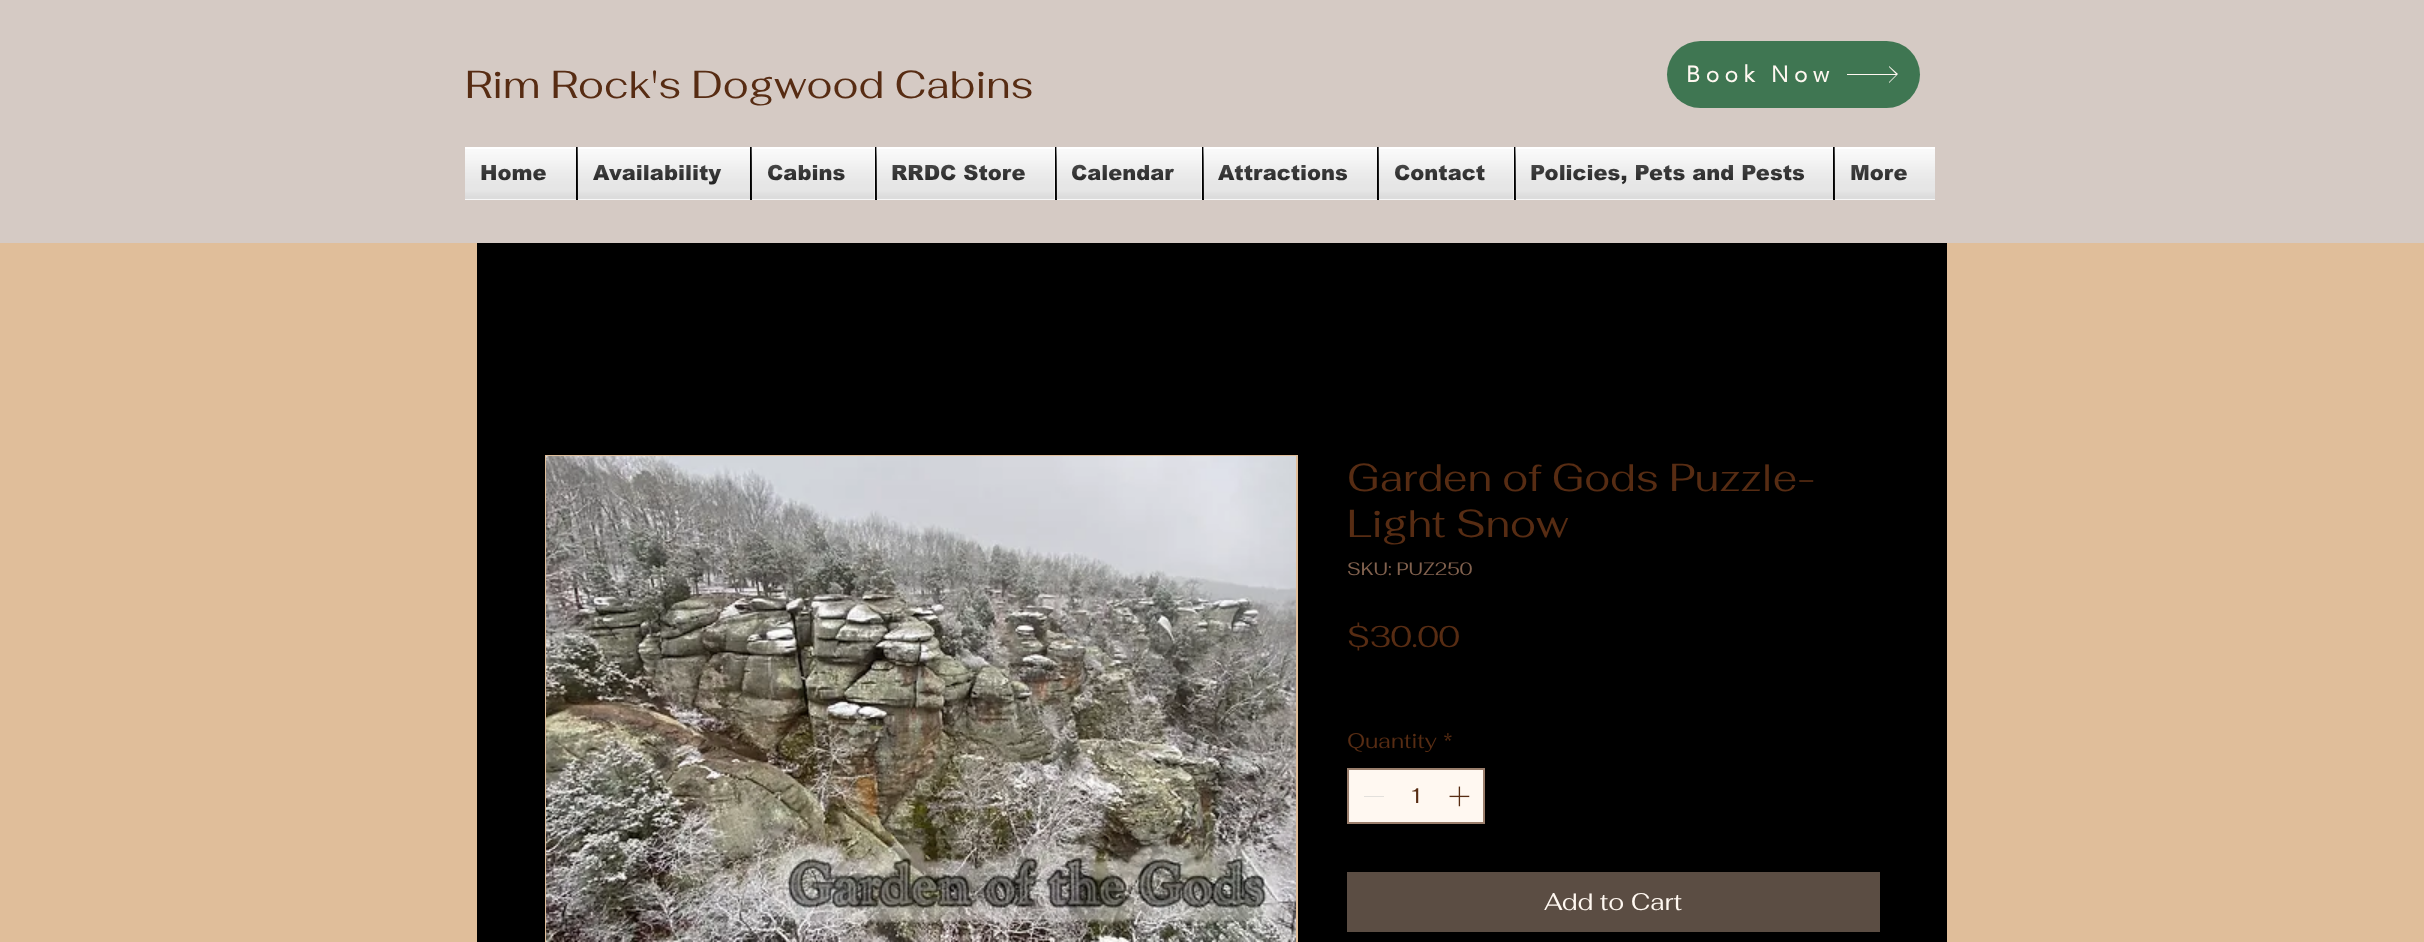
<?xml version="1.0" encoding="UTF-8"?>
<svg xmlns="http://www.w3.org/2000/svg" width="2424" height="942">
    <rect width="100%" height="100%" fill="#E0BE9A"/>
    <rect x="0" y="0" width="2424" height="243" fill="#D5CAC4"/>
    <text x="465" y="98" font-family="Fahkwang" font-size="39" fill="#572C13">Rim Rock's Dogwood Cabins</text>
    <rect x="1667" y="41" width="253" height="67" rx="33.5" fill="#3F7652"/>
    <text x="1686" y="82" font-family="'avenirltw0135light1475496'" font-size="22.5" font-weight="700" letter-spacing="5.5" fill="#FFF8F1">Book Now</text>
    <path d="M 1889 66 V 67 L 1896 74 H 1847 V 75 H 1896 L 1889 82 V 83 L 1898 74 Z" fill="#FFF8F1"/>
    <rect x="465" y="147" width="111" height="53" fill="#FFFFFF"/>
    <text x="480" y="180" font-family="arial" font-size="21" font-weight="900" fill="#000000">Home</text>
    <image x="481" y="165" width="65" height="16" href="img_01.png"/>
    <image x="465" y="149" width="111" height="51" href="img_02.png"/>
    <rect x="578" y="147" width="172" height="53" fill="#FFFFFF"/>
    <rect x="576" y="147" width="2" height="53" fill="#000000"/>
    <text x="593" y="180" font-family="arial" font-size="21" font-weight="900" fill="#000000">Availability</text>
    <image x="577" y="147" width="144" height="52" href="img_03.png"/>
    <image x="578" y="149" width="172" height="51" href="img_04.png"/>
    <rect x="752" y="147" width="123" height="53" fill="#FFFFFF"/>
    <rect x="750" y="147" width="2" height="53" fill="#000000"/>
    <text x="767" y="180" font-family="arial" font-size="21" font-weight="900" fill="#000000">Cabins</text>
    <image x="751" y="147" width="94" height="52" href="img_05.png"/>
    <image x="752" y="149" width="123" height="51" href="img_06.png"/>
    <rect x="877" y="147" width="178" height="53" fill="#FFFFFF"/>
    <rect x="875" y="147" width="2" height="53" fill="#000000"/>
    <text x="891" y="180" font-family="arial" font-size="21" font-weight="900" fill="#000000">RRDC Store</text>
    <image x="876" y="147" width="149" height="52" href="img_07.png"/>
    <image x="876" y="149" width="179" height="51" href="img_08.png"/>
    <rect x="1057" y="147" width="145" height="53" fill="#FFFFFF"/>
    <rect x="1055" y="147" width="2" height="53" fill="#000000"/>
    <text x="1071" y="180" font-family="arial" font-size="21" font-weight="900" fill="#000000">Calendar</text>
    <image x="1056" y="147" width="119" height="52" href="img_09.png"/>
    <image x="1056" y="149" width="146" height="51" href="img_10.png"/>
    <rect x="1204" y="147" width="173" height="53" fill="#FFFFFF"/>
    <rect x="1202" y="147" width="2" height="53" fill="#000000"/>
    <text x="1218" y="180" font-family="arial" font-size="21" font-weight="900" fill="#000000">Attractions</text>
    <image x="1203" y="147" width="144" height="52" href="img_11.png"/>
    <image x="1203" y="149" width="174" height="51" href="img_12.png"/>
    <rect x="1379" y="147" width="135" height="53" fill="#FFFFFF"/>
    <rect x="1377" y="147" width="2" height="53" fill="#000000"/>
    <text x="1394" y="180" font-family="arial" font-size="21" font-weight="900" fill="#000000">Contact</text>
    <image x="1378" y="147" width="106" height="52" href="img_13.png"/>
    <image x="1379" y="149" width="135" height="51" href="img_14.png"/>
    <rect x="1516" y="147" width="317" height="53" fill="#FFFFFF"/>
    <rect x="1514" y="147" width="2" height="53" fill="#000000"/>
    <text x="1530" y="180" font-family="arial" font-size="21" font-weight="900" fill="#000000">Policies, Pets and Pests</text>
    <image x="1515" y="147" width="290" height="52" href="img_15.png"/>
    <image x="1515" y="149" width="318" height="51" href="img_16.png"/>
    <rect x="1835" y="147" width="100" height="53" fill="#FFFFFF"/>
    <rect x="1833" y="147" width="2" height="53" fill="#000000"/>
    <text x="1850" y="180" font-family="arial" font-size="21" font-weight="900" fill="#000000">More</text>
    <image x="1834" y="147" width="73" height="52" href="img_17.png"/>
    <image x="1835" y="149" width="100" height="51" href="img_18.png"/>
    <rect x="477" y="243" width="1470" height="699" fill="#000000"/>
    <rect x="546" y="456" width="751" height="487" fill="none" stroke="#E0BE9A" stroke-width="2"/>
    <image x="546" y="456" width="750" height="486" href="img_19.png"/>
    <text font-family="Fahkwang" font-size="39" fill="#572C13">
        <tspan x="1347" y="491">Garden of Gods Puzzle-</tspan>
        <tspan x="1347" y="537">Light Snow</tspan>
    </text>
    <text x="1347" y="575" font-family="Fahkwang" font-size="18" fill="#81614E">SKU: PUZ250</text>
    <text x="1347" y="647" font-family="Fahkwang" font-size="30" fill="#572C13">$30.00</text>
    <text x="1347" y="748" font-family="Fahkwang" font-size="21" fill="#572C13">Quantity</text>
    <text x="1443" y="748" font-family="Fahkwang" font-size="21" fill="#572C13">*</text>
    <rect x="1348" y="769" width="136" height="54" fill="#FFF8F1" stroke="#9A7E6C" stroke-width="2"/>
    <rect x="1364" y="796" width="20" height="1" fill="#E3E0DC"/>
    <text x="1409" y="803" font-family="Fahkwang" font-size="21" fill="#572C13">1</text>
    <image x="1449" y="786" width="21" height="21" href="img_20.png"/>
    <rect x="1347" y="872" width="533" height="60" fill="#5B4D43"/>
    <text x="1544" y="910" font-family="Fahkwang" font-size="24" fill="#FFF8F1">Add to Cart</text>
</svg>
